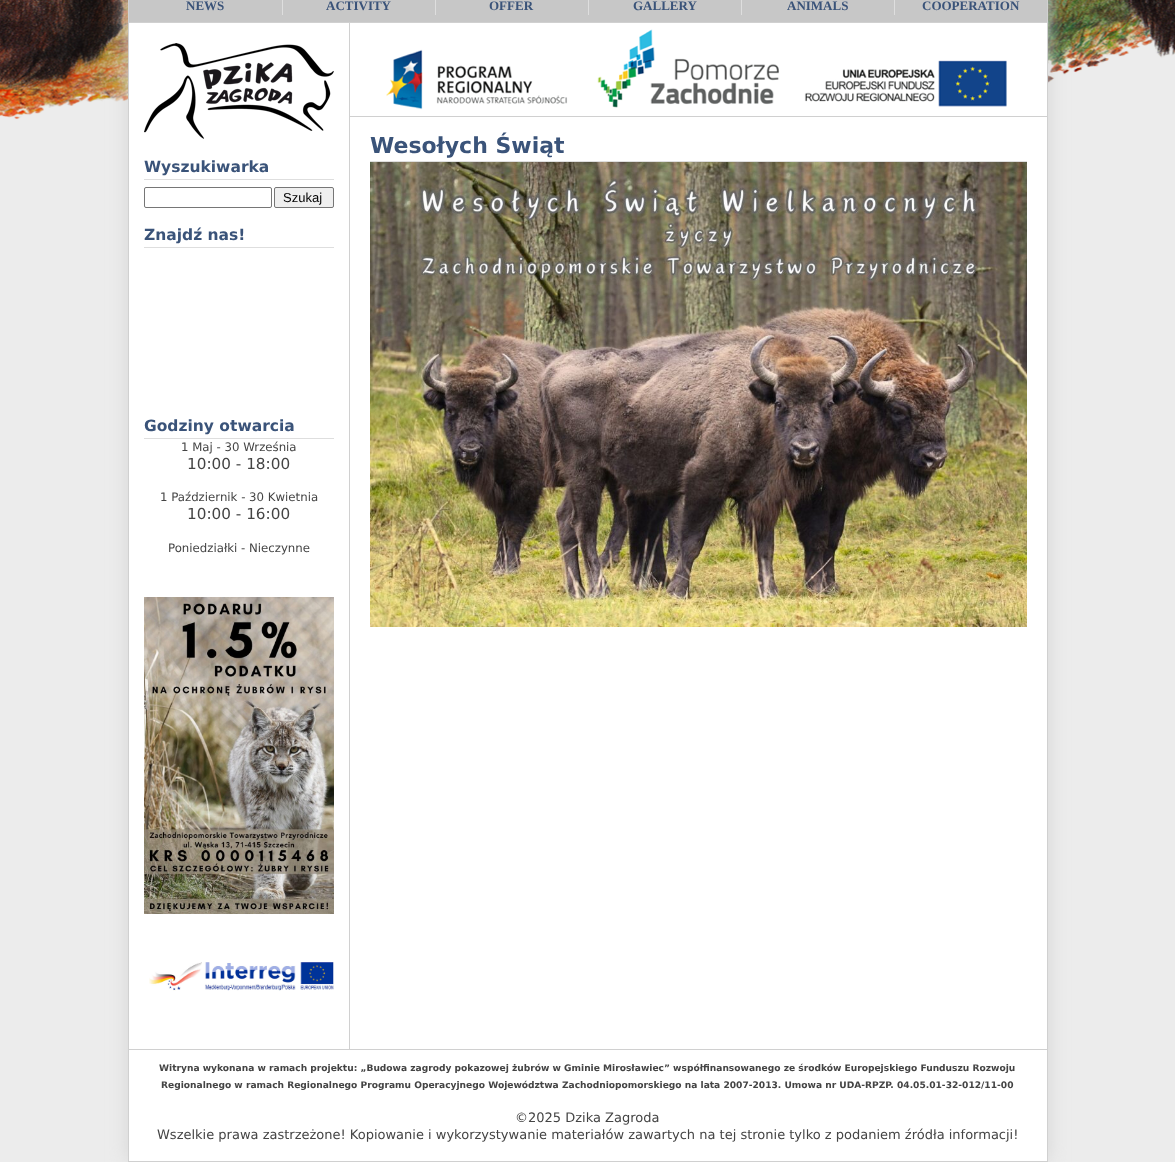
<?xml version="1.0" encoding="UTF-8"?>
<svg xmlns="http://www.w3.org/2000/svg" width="1175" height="1162">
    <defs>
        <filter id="blur1" x="-50%" y="-200%" width="200%" height="500%"><feGaussianBlur stdDeviation="10"/></filter>
    </defs>
    <rect width="100%" height="100%" fill="#ECECEC"/>
    <image x="0" y="0" width="1175" height="120" href="img_01.png"/>
    <rect x="128" y="-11" width="920" height="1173" fill="#D4D4D4" filter="url(#blur1)"/>
    <rect x="129" y="23" width="918" height="1026" fill="#FFFFFF"/>
    <rect x="128.5" y="-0.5" width="919" height="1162" fill="none" stroke="#D0D0D0"/>
    <rect x="129" y="0" width="918" height="22" fill="#C7C7C7"/>
    <rect x="129" y="22" width="919" height="1" fill="#D0D0D0"/>
    <rect x="282" y="0" width="1" height="15" fill="#DEDEDE"/>
    <text x="186" y="10" font-family="Liberation Serif" font-size="13" font-weight="700" fill="#3A5379">NEWS</text>
    <rect x="435" y="0" width="1" height="15" fill="#DEDEDE"/>
    <text x="326" y="10" font-family="Liberation Serif" font-size="13" font-weight="700" fill="#3A5379">ACTIVITY</text>
    <rect x="588" y="0" width="1" height="15" fill="#DEDEDE"/>
    <text x="489" y="10" font-family="Liberation Serif" font-size="13" font-weight="700" fill="#3A5379">OFFER</text>
    <rect x="741" y="0" width="1" height="15" fill="#DEDEDE"/>
    <text x="633" y="10" font-family="Liberation Serif" font-size="13" font-weight="700" fill="#3A5379">GALLERY</text>
    <rect x="894" y="0" width="1" height="15" fill="#DEDEDE"/>
    <text x="787" y="10" font-family="Liberation Serif" font-size="13" font-weight="700" fill="#3A5379">ANIMALS</text>
    <text x="922" y="10" font-family="Liberation Serif" font-size="13" font-weight="700" fill="#3A5379">COOPERATION</text>
    <image x="386" y="29" width="621" height="81" href="img_02.png"/>
    <rect x="350" y="116" width="697" height="1" fill="#D0D0D0"/>
    <text x="370" y="153" font-family="DejaVu Sans" font-size="22" font-weight="700" fill="#3A5379">Wesołych Świąt</text>
    <rect x="370" y="161" width="657" height="1" fill="#DEDEDE"/>
    <image x="370" y="162" width="657" height="465" href="img_03.png"/>
    <rect x="349" y="23" width="1" height="1026" fill="#D0D0D0"/>
    <image x="144" y="43" width="190" height="96" href="img_04.png"/>
    <rect x="144" y="179" width="190" height="1" fill="#DEDEDE"/>
    <text x="144" y="172" font-family="DejaVu Sans" font-size="15.5" font-weight="700" fill="#3A5379">Wyszukiwarka</text>
    <rect x="144.5" y="187.5" width="127" height="20" rx="1.5" fill="none" stroke="#767676"/>
    <rect x="274.5" y="187.5" width="59" height="20" rx="1.5" fill="#EFEFEF" stroke="#767676"/>
    <text x="283" y="202" font-family="Liberation Sans" font-size="13" fill="#000000">Szukaj</text>
    <rect x="144" y="247" width="190" height="1" fill="#DEDEDE"/>
    <text x="144" y="240" font-family="DejaVu Sans" font-size="15.5" font-weight="700" fill="#3A5379">Znajdź nas!</text>
    <rect x="144" y="438" width="190" height="1" fill="#DEDEDE"/>
    <text x="144" y="431" font-family="DejaVu Sans" font-size="15.5" font-weight="700" fill="#3A5379">Godziny otwarcia</text>
    <text x="181" y="451" font-family="DejaVu Sans" font-size="11.75" fill="#444444">1 Maj - 30 Września</text>
    <text x="187" y="469" font-family="DejaVu Sans" font-size="15.25" fill="#444444">10:00 - 18:00</text>
    <text x="160" y="501" font-family="DejaVu Sans" font-size="11.75" fill="#444444">1 Październik - 30 Kwietnia</text>
    <text x="187" y="519" font-family="DejaVu Sans" font-size="15.25" fill="#444444">10:00 - 16:00</text>
    <text x="168" y="552" font-family="DejaVu Sans" font-size="11.75" fill="#444444">Poniedziałki - Nieczynne</text>
    <image x="144" y="597" width="190" height="317" href="img_05.png"/>
    <image x="149" y="962" width="185" height="29" href="img_06.png"/>
    <rect x="128.5" y="1049.5" width="919" height="112" fill="#FFFFFF" stroke="#D0D0D0"/>
    <text x="159" y="1071" font-family="DejaVu Sans" font-size="9.1" font-weight="700" fill="#444444">Witryna wykonana w ramach projektu: „Budowa zagrody pokazowej żubrów w Gminie Mirosławiec” współfinansowanego ze środków Europejskiego Funduszu Rozwoju</text>
    <text x="161" y="1088" font-family="DejaVu Sans" font-size="9.1" font-weight="700" fill="#444444">Regionalnego w ramach Regionalnego Programu Operacyjnego Województwa Zachodniopomorskiego na lata 2007-2013. Umowa nr UDA-RPZP. 04.05.01-32-012/11-00</text>
    <text x="515" y="1122" font-family="DejaVu Sans" font-size="13" fill="#444444">©2025 Dzika Zagroda</text>
    <text x="157" y="1139" font-family="DejaVu Sans" font-size="13" fill="#444444">Wszelkie prawa zastrzeżone! Kopiowanie i wykorzystywanie materiałów zawartych na tej stronie tylko z podaniem źródła informacji!</text>
</svg>
